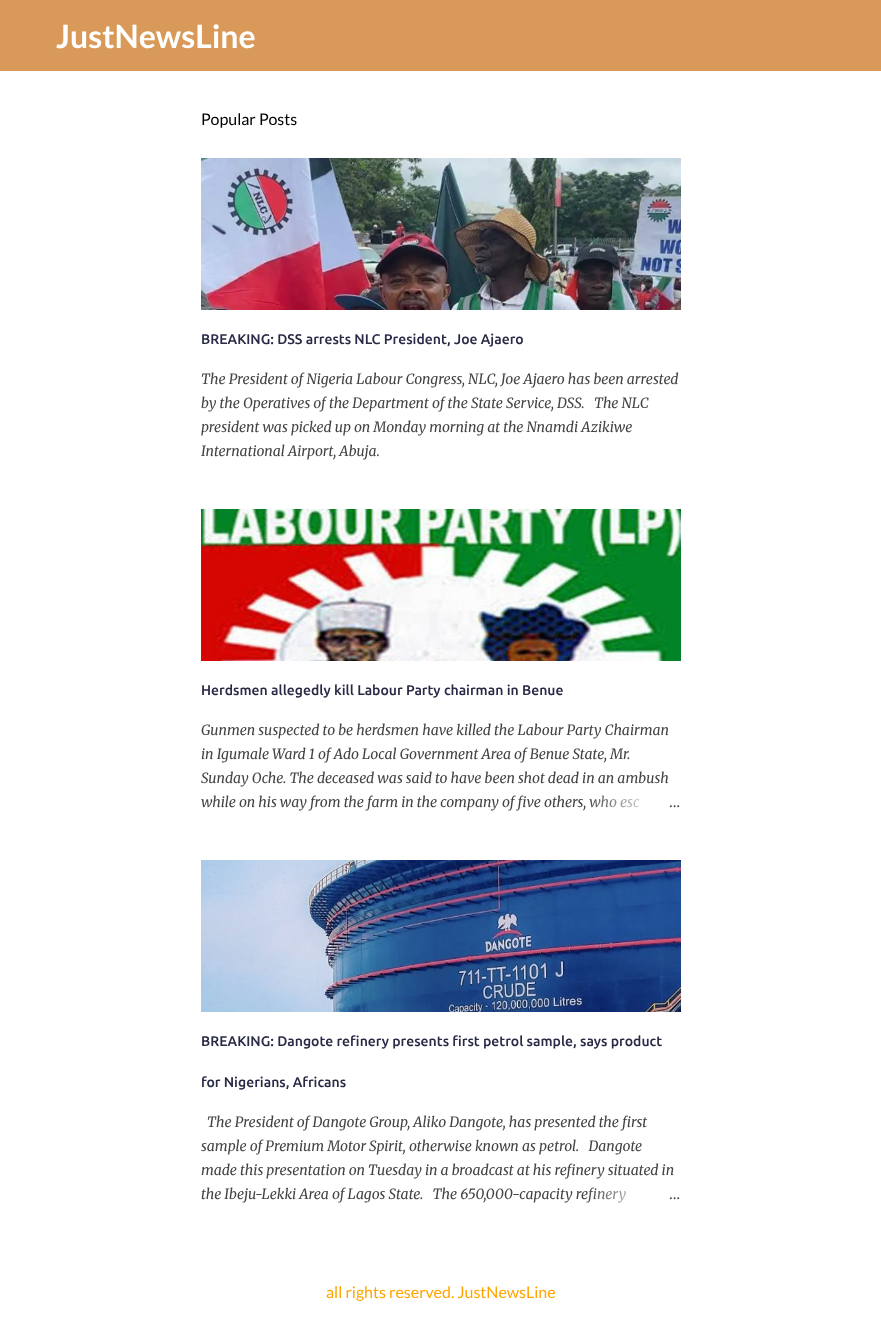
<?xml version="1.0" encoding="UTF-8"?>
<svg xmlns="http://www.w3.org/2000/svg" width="881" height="1333">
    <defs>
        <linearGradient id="g1" gradientUnits="userSpaceOnUse" x1="681" y1="802" x2="585" y2="802"><stop offset="0" stop-color="#FFFFFF"/><stop offset="0.2" stop-color="#FFFFFF"/><stop offset="1" stop-color="#FFFFFF" stop-opacity="0"/></linearGradient>
        <linearGradient id="g2" gradientUnits="userSpaceOnUse" x1="681" y1="1194" x2="585" y2="1194"><stop offset="0" stop-color="#FFFFFF"/><stop offset="0.2" stop-color="#FFFFFF"/><stop offset="1" stop-color="#FFFFFF" stop-opacity="0"/></linearGradient>
    </defs>
    <rect width="100%" height="100%" fill="#FFFFFF"/>
    <rect x="0" y="0" width="881" height="71" fill="#D99958"/>
    <text x="56" y="48" font-family="Lato" font-size="32" font-weight="700" fill="#FFFFFF">JustNewsLine</text>
    <text x="201" y="125" font-family="Lato" font-size="16" fill="#000000">Popular Posts</text>
    <image x="201" y="158" width="480" height="152" href="img_01.png"/>
    <text x="201" y="344" font-family="Ubuntu" font-size="14" font-weight="500" fill="#282A46">BREAKING: DSS arrests NLC President, Joe Ajaero</text>
    <text font-family="Merriweather" font-size="14" font-style="italic" fill="#434343" xml:space="preserve"><tspan x="201" y="384">The President of Nigeria Labour Congress, NLC, Joe Ajaero has been arrested</tspan><tspan x="201" y="408">by the Operatives of the Department of the State Service, DSS.   The NLC</tspan><tspan x="201" y="432">president was picked up on Monday morning at the Nnamdi Azikiwe</tspan><tspan x="201" y="456">International Airport, Abuja.</tspan></text>
    <image x="201" y="509" width="480" height="152" href="img_02.png"/>
    <text x="201" y="695" font-family="Ubuntu" font-size="14" font-weight="500" fill="#282A46">Herdsmen allegedly kill Labour Party chairman in Benue</text>
    <text font-family="Merriweather" font-size="14" font-style="italic" fill="#434343">
        <tspan x="201" y="735">Gunmen suspected to be herdsmen have killed the Labour Party Chairman</tspan>
        <tspan x="201" y="759">in Igumale Ward 1 of Ado Local Government Area of Benue State, Mr.</tspan>
        <tspan x="201" y="783">Sunday Oche. The deceased was said to have been shot dead in an ambush</tspan>
        <tspan x="201" y="807">while on his way from the farm in the company of five others, who esc</tspan>
    </text>
    <rect x="589" y="795" width="50" height="13" fill="url(#g1)"/>
    <text x="669" y="807" font-family="Merriweather" font-size="14" fill="#434343">…</text>
    <image x="201" y="860" width="480" height="152" href="img_03.png"/>
    <text x="201" y="1046" font-family="Ubuntu" font-size="14" font-weight="500" fill="#282A46">BREAKING: Dangote refinery presents first petrol sample, says product</text>
    <text x="201" y="1087" font-family="Ubuntu" font-size="14" font-weight="500" fill="#282A46">for Nigerians, Africans</text>
    <text x="207" y="1127" font-family="Merriweather" font-size="14" font-style="italic" fill="#434343">The President of Dangote Group, Aliko Dangote, has presented the first</text>
    <text font-family="Merriweather" font-size="14" font-style="italic" fill="#434343" xml:space="preserve"><tspan x="201" y="1151">sample of Premium Motor Spirit, otherwise known as petrol.   Dangote</tspan><tspan x="201" y="1175">made this presentation on Tuesday in a broadcast at his refinery situated in</tspan><tspan x="201" y="1199">the Ibeju-Lekki Area of Lagos State.   The 650,000-capacity refinery</tspan></text>
    <rect x="587" y="1187" width="39" height="16" fill="url(#g2)"/>
    <text x="669" y="1199" font-family="Merriweather" font-size="14" fill="#434343">…</text>
    <text x="326" y="1298" font-family="Lato" font-size="16" fill="#FFA500">all rights reserved. JustNewsLine</text>
</svg>
